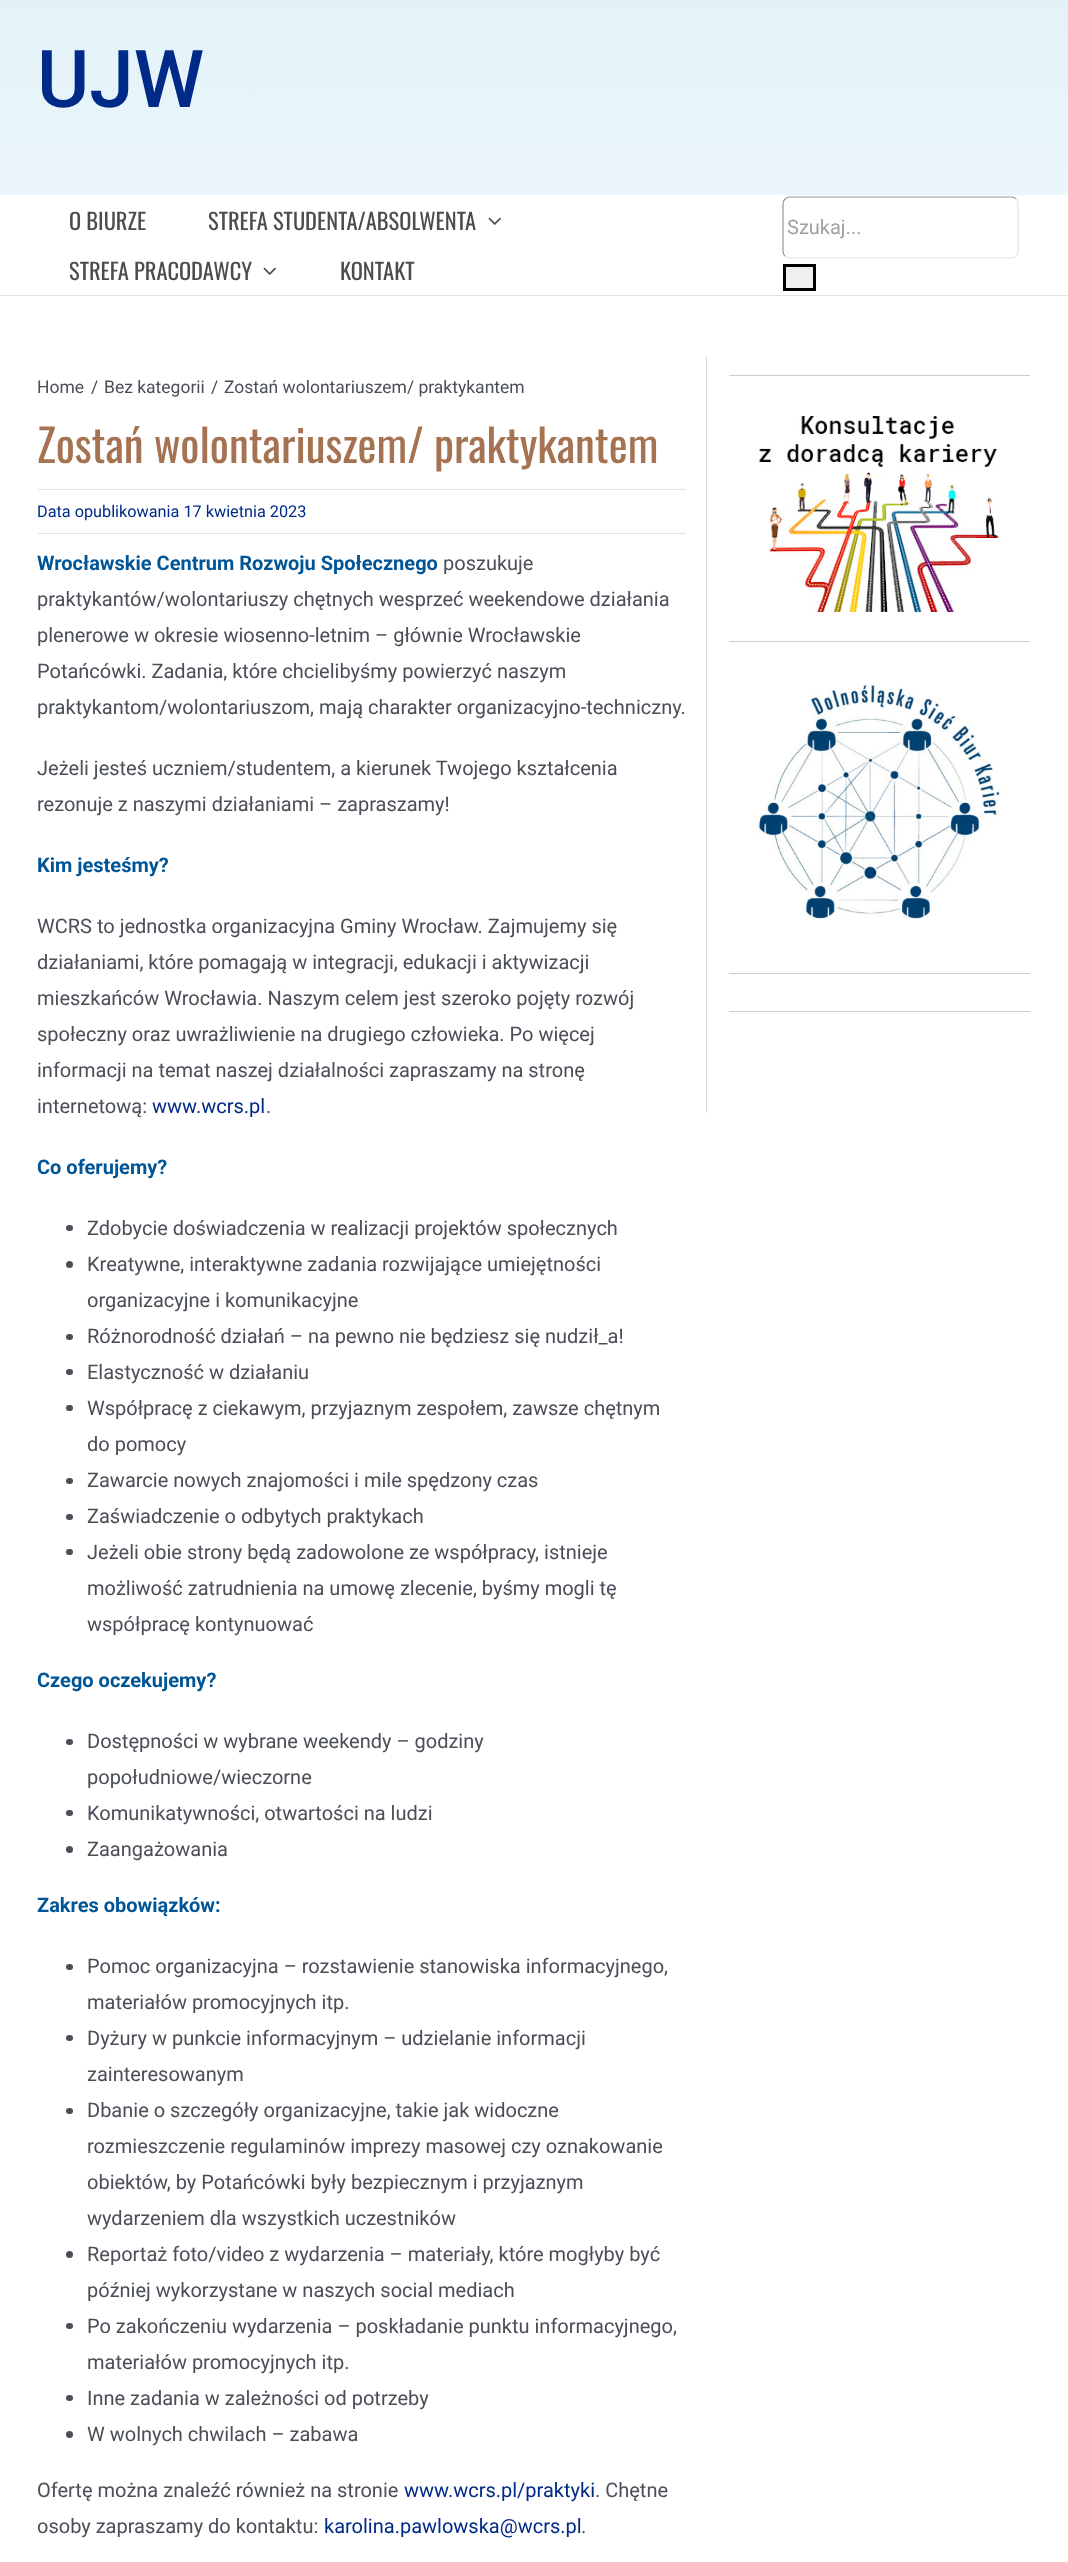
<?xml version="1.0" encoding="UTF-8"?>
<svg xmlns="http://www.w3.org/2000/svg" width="1068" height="2562">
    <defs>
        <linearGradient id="g1" gradientUnits="userSpaceOnUse" x1="534" y1="-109" x2="534" y2="195"><stop offset="0" stop-color="#DEF0F8"/><stop offset="1" stop-color="#EBF6FB"/></linearGradient>
    </defs>
    <rect width="100%" height="100%" fill="#FFFFFF"/>
    <rect x="0" y="0" width="1068" height="195" fill="url(#g1)"/>
    <text x="37" y="107" font-family="Roboto" font-size="80" font-weight="500" fill="#002A87">UJW</text>
    <rect x="0" y="295" width="1068" height="1" fill="#E2E2E2"/>
    <text x="69" y="230" font-family="Oswald" font-size="22.5" fill="#4C4C4C">O BIURZE</text>
    <text x="208" y="230" font-family="Oswald" font-size="22.5" fill="#4C4C4C">STREFA STUDENTA/ABSOLWENTA</text>
    <image x="488" y="217" width="13" height="8" href="img_01.png"/>
    <text x="69" y="280" font-family="Oswald" font-size="22.5" fill="#4C4C4C">STREFA PRACODAWCY</text>
    <image x="263" y="267" width="13" height="8" href="img_01.png"/>
    <text x="340" y="280" font-family="Oswald" font-size="22.5" fill="#4C4C4C">KONTAKT</text>
    <path d="M 1016 199 C 1017.5 200 1018 202 1018 204 V 251 C 1018 253 1017.5 255 1016 256 C 1015 257.5 1013 258 1011 258 H 790 C 788 258 786.5 257.5 785 256" fill="none" stroke="#E2E2E2" stroke-width="1.2"/>
    <path d="M 785 256 C 784 255 783 253 783 251 V 204 C 783 202 784 200 785 199 C 786.5 197.5 788 197 790 197 H 1011 C 1013 197 1015 197.5 1016 199" fill="none" stroke="#979797" stroke-width="1.2"/>
    <text x="787" y="234" font-family="Roboto" font-size="20" fill="#9EA0A4">Szukaj...</text>
    <rect x="784.5" y="265.5" width="30" height="24" fill="#EFEFEF" stroke="#000000" stroke-width="3"/>
    <text x="37" y="393" font-family="Roboto" font-size="17.5" fill="#4A4E57">Home</text>
    <text x="91" y="393" font-family="Roboto" font-size="17.5" fill="#4A4E57">/</text>
    <text x="104" y="393" font-family="Roboto" font-size="17.5" fill="#4A4E57">Bez kategorii</text>
    <text x="211" y="393" font-family="Roboto" font-size="17.5" fill="#4A4E57">/</text>
    <text x="224" y="393" font-family="Roboto" font-size="17.5" fill="#4A4E57">Zostań wolontariuszem/ praktykantem</text>
    <text x="37" y="463" font-family="Oswald" font-size="45" fill="#A57352">Zostań wolontariuszem/ praktykantem</text>
    <rect x="38" y="489" width="648" height="1" fill="#E2E2E2"/>
    <rect x="38" y="533" width="648" height="1" fill="#E2E2E2"/>
    <text x="37" y="517" font-family="Roboto" font-size="16.25" fill="#002A87">Data opublikowania 17 kwietnia 2023</text>
    <text x="37" y="570" font-family="Roboto" font-size="20" font-weight="700" fill="#005596">Wrocławskie Centrum Rozwoju Społecznego</text>
    <text x="443" y="570" font-family="Roboto" font-size="20" fill="#4A4E57">poszukuje</text>
    <text font-family="Roboto" font-size="20" fill="#4A4E57">
        <tspan x="37" y="606">praktykantów/wolontariuszy chętnych wesprzeć weekendowe działania</tspan>
        <tspan x="37" y="642">plenerowe w okresie wiosenno-letnim – głównie Wrocławskie</tspan>
        <tspan x="37" y="678">Potańcówki. Zadania, które chcielibyśmy powierzyć naszym</tspan>
        <tspan x="37" y="714">praktykantom/wolontariuszom, mają charakter organizacyjno-techniczny.</tspan>
    </text>
    <text font-family="Roboto" font-size="20" fill="#4A4E57">
        <tspan x="37" y="775">Jeżeli jesteś uczniem/studentem, a kierunek Twojego kształcenia</tspan>
        <tspan x="37" y="811">rezonuje z naszymi działaniami – zapraszamy!</tspan>
    </text>
    <text x="37" y="872" font-family="Roboto" font-size="20" font-weight="700" fill="#005596">Kim jesteśmy?</text>
    <text font-family="Roboto" font-size="20" fill="#4A4E57">
        <tspan x="37" y="933">WCRS to jednostka organizacyjna Gminy Wrocław. Zajmujemy się</tspan>
        <tspan x="37" y="969">działaniami, które pomagają w integracji, edukacji i aktywizacji</tspan>
        <tspan x="37" y="1005">mieszkańców Wrocławia. Naszym celem jest szeroko pojęty rozwój</tspan>
        <tspan x="37" y="1041">społeczny oraz uwrażliwienie na drugiego człowieka. Po więcej</tspan>
        <tspan x="37" y="1077">informacji na temat naszej działalności zapraszamy na stronę</tspan>
        <tspan x="37" y="1113">internetową:</tspan>
    </text>
    <text x="152" y="1113" font-family="Roboto" font-size="20" fill="#002A87">www.wcrs.pl</text>
    <text x="266" y="1113" font-family="Roboto" font-size="20" fill="#4A4E57">.</text>
    <text x="37" y="1174" font-family="Roboto" font-size="20" font-weight="700" fill="#005596">Co oferujemy?</text>
    <rect x="66" y="1225" width="7" height="6" rx="3" fill="#4A4E57"/>
    <text x="87" y="1235" font-family="Roboto" font-size="20" fill="#4A4E57">Zdobycie doświadczenia w realizacji projektów społecznych</text>
    <circle cx="69.5" cy="1264.5" r="3.5" fill="#4A4E57"/>
    <text font-family="Roboto" font-size="20" fill="#4A4E57">
        <tspan x="87" y="1271">Kreatywne, interaktywne zadania rozwijające umiejętności</tspan>
        <tspan x="87" y="1307">organizacyjne i komunikacyjne</tspan>
    </text>
    <rect x="66" y="1334" width="7" height="6" rx="3" fill="#4A4E57"/>
    <text x="87" y="1343" font-family="Roboto" font-size="20" fill="#4A4E57">Różnorodność działań – na pewno nie będziesz się nudził_a!</text>
    <rect x="66" y="1369" width="7" height="6" rx="3" fill="#4A4E57"/>
    <text x="87" y="1379" font-family="Roboto" font-size="20" fill="#4A4E57">Elastyczność w działaniu</text>
    <rect x="66" y="1405" width="7" height="6" rx="3" fill="#4A4E57"/>
    <text font-family="Roboto" font-size="20" fill="#4A4E57">
        <tspan x="87" y="1415">Współpracę z ciekawym, przyjaznym zespołem, zawsze chętnym</tspan>
        <tspan x="87" y="1451">do pomocy</tspan>
    </text>
    <rect x="66" y="1478" width="7" height="6" rx="3" fill="#4A4E57"/>
    <text x="87" y="1487" font-family="Roboto" font-size="20" fill="#4A4E57">Zawarcie nowych znajomości i mile spędzony czas</text>
    <rect x="66" y="1514" width="7" height="6" rx="3" fill="#4A4E57"/>
    <text x="87" y="1523" font-family="Roboto" font-size="20" fill="#4A4E57">Zaświadczenie o odbytych praktykach</text>
    <rect x="66" y="1549" width="7" height="6" rx="3" fill="#4A4E57"/>
    <text font-family="Roboto" font-size="20" fill="#4A4E57">
        <tspan x="87" y="1559">Jeżeli obie strony będą zadowolone ze współpracy, istnieje</tspan>
        <tspan x="87" y="1595">możliwość zatrudnienia na umowę zlecenie, byśmy mogli tę</tspan>
        <tspan x="87" y="1631">współpracę kontynuować</tspan>
    </text>
    <text x="37" y="1687" font-family="Roboto" font-size="20" font-weight="700" fill="#005596">Czego oczekujemy?</text>
    <rect x="66" y="1739" width="7" height="6" rx="3" fill="#4A4E57"/>
    <text font-family="Roboto" font-size="20" fill="#4A4E57">
        <tspan x="87" y="1748">Dostępności w wybrane weekendy – godziny</tspan>
        <tspan x="87" y="1784">popołudniowe/wieczorne</tspan>
    </text>
    <rect x="66" y="1810" width="7" height="6" rx="3" fill="#4A4E57"/>
    <text x="87" y="1820" font-family="Roboto" font-size="20" fill="#4A4E57">Komunikatywności, otwartości na ludzi</text>
    <circle cx="69.5" cy="1849.5" r="3.5" fill="#4A4E57"/>
    <text x="87" y="1856" font-family="Roboto" font-size="20" fill="#4A4E57">Zaangażowania</text>
    <text x="37" y="1912" font-family="Roboto" font-size="20" font-weight="700" fill="#005596">Zakres obowiązków:</text>
    <rect x="66" y="1964" width="7" height="6" rx="3" fill="#4A4E57"/>
    <text font-family="Roboto" font-size="20" fill="#4A4E57">
        <tspan x="87" y="1973">Pomoc organizacyjna – rozstawienie stanowiska informacyjnego,</tspan>
        <tspan x="87" y="2009">materiałów promocyjnych itp.</tspan>
    </text>
    <rect x="66" y="2035" width="7" height="6" rx="3" fill="#4A4E57"/>
    <text font-family="Roboto" font-size="20" fill="#4A4E57">
        <tspan x="87" y="2045">Dyżury w punkcie informacyjnym – udzielanie informacji</tspan>
        <tspan x="87" y="2081">zainteresowanym</tspan>
    </text>
    <rect x="66" y="2108" width="7" height="6" rx="3" fill="#4A4E57"/>
    <text font-family="Roboto" font-size="20" fill="#4A4E57">
        <tspan x="87" y="2117">Dbanie o szczegóły organizacyjne, takie jak widoczne</tspan>
        <tspan x="87" y="2153">rozmieszczenie regulaminów imprezy masowej czy oznakowanie</tspan>
        <tspan x="87" y="2189">obiektów, by Potańcówki były bezpiecznym i przyjaznym</tspan>
        <tspan x="87" y="2225">wydarzeniem dla wszystkich uczestników</tspan>
    </text>
    <circle cx="69.5" cy="2254.5" r="3.5" fill="#4A4E57"/>
    <text font-family="Roboto" font-size="20" fill="#4A4E57">
        <tspan x="87" y="2261">Reportaż foto/video z wydarzenia – materiały, które mogłyby być</tspan>
        <tspan x="87" y="2297">później wykorzystane w naszych social mediach</tspan>
    </text>
    <rect x="66" y="2323" width="7" height="6" rx="3" fill="#4A4E57"/>
    <text font-family="Roboto" font-size="20" fill="#4A4E57">
        <tspan x="87" y="2333">Po zakończeniu wydarzenia – poskładanie punktu informacyjnego,</tspan>
        <tspan x="87" y="2369">materiałów promocyjnych itp.</tspan>
    </text>
    <rect x="66" y="2395" width="7" height="6" rx="3" fill="#4A4E57"/>
    <text x="87" y="2405" font-family="Roboto" font-size="20" fill="#4A4E57">Inne zadania w zależności od potrzeby</text>
    <circle cx="69.5" cy="2434.5" r="3.5" fill="#4A4E57"/>
    <text x="87" y="2441" font-family="Roboto" font-size="20" fill="#4A4E57">W wolnych chwilach – zabawa</text>
    <text x="37" y="2497" font-family="Roboto" font-size="20" fill="#4A4E57">Ofertę można znaleźć również na stronie</text>
    <text x="404" y="2497" font-family="Roboto" font-size="20" fill="#002A87">www.wcrs.pl/praktyki</text>
    <text x="595" y="2497" font-family="Roboto" font-size="20" fill="#4A4E57">. Chętne</text>
    <text x="37" y="2533" font-family="Roboto" font-size="20" fill="#4A4E57">osoby zapraszamy do kontaktu:</text>
    <text x="324" y="2533" font-family="Roboto" font-size="20" fill="#002A87">karolina.pawlowska@wcrs.pl</text>
    <text x="581" y="2533" font-family="Roboto" font-size="20" fill="#4A4E57">.</text>
    <rect x="706" y="356" width="1" height="757" fill="#DBDBDB"/>
    <rect x="729" y="375" width="301" height="1" fill="#CCCCCC"/>
    <image x="759" y="416" width="242" height="196" href="img_02.png"/>
    <rect x="729" y="641" width="301" height="1" fill="#CCCCCC"/>
    <image x="756" y="682" width="247" height="237" href="img_03.png"/>
    <rect x="729" y="973" width="301" height="1" fill="#CCCCCC"/>
    <rect x="729" y="1011" width="301" height="1" fill="#CCCCCC"/>
</svg>
